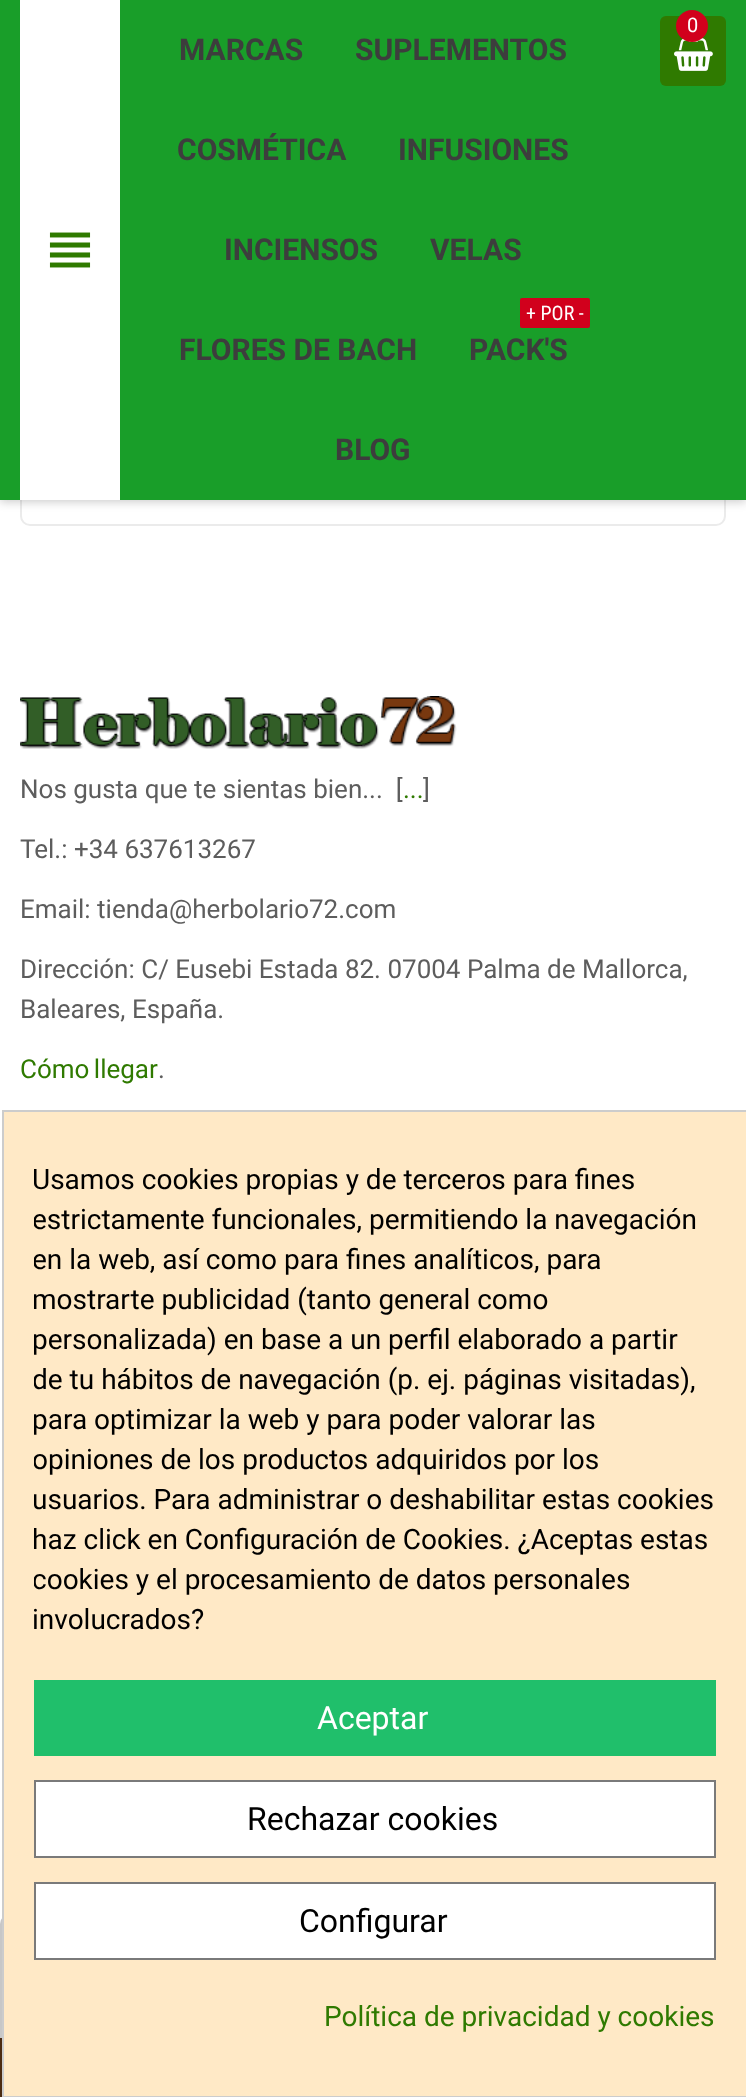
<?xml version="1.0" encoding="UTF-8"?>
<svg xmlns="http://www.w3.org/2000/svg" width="746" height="2097">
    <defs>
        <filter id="blur1" x="-50%" y="-200%" width="200%" height="500%"><feGaussianBlur stdDeviation="5"/></filter>
        <clipPath id="clip1"><rect x="34" y="1160" width="682" height="480"/></clipPath>
    </defs>
    <rect width="100%" height="100%" fill="#FFFFFF"/>
    <rect x="21" y="-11" width="704" height="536" rx="9" fill="none" stroke="#EBEBEB" stroke-width="2"/>
    <rect x="0" y="2" width="746" height="500" fill="#000000" fill-opacity="0.2" filter="url(#blur1)"/>
    <rect x="0" y="0" width="746" height="500" fill="#199E29"/>
    <rect x="20" y="0" width="100" height="500" fill="#FFFFFF"/>
    <image x="49" y="232" width="42" height="36" href="img_01.png"/>
    <rect x="660" y="16" width="66" height="70" rx="6" fill="#2F7A00"/>
    <image x="674" y="38" width="39" height="33" href="img_02.png"/>
    <circle cx="692" cy="26" r="16" fill="#D1001C"/>
    <text x="687" y="32" font-family="Roboto" font-size="20" fill="#FFFFFF">0</text>
    <text x="179" y="60" font-family="Roboto" font-size="30" font-weight="700" fill="#3D3D3D">MARCAS</text>
    <text x="355" y="60" font-family="Roboto" font-size="30" font-weight="700" fill="#3D3D3D">SUPLEMENTOS</text>
    <text x="177" y="160" font-family="Roboto" font-size="30" font-weight="700" fill="#3D3D3D">COSMÉTICA</text>
    <text x="398" y="160" font-family="Roboto" font-size="30" font-weight="700" fill="#3D3D3D">INFUSIONES</text>
    <text x="224" y="260" font-family="Roboto" font-size="30" font-weight="700" fill="#3D3D3D">INCIENSOS</text>
    <text x="430" y="260" font-family="Roboto" font-size="30" font-weight="700" fill="#3D3D3D">VELAS</text>
    <text x="179" y="360" font-family="Roboto" font-size="30" font-weight="700" fill="#3D3D3D">FLORES DE BACH</text>
    <rect x="520" y="298" width="70" height="30" rx="2" fill="#D1001C"/>
    <text x="526" y="320" font-family="Roboto Condensed" font-size="20" fill="#FFFFFF">+ POR -</text>
    <text x="469" y="360" font-family="Roboto" font-size="30" font-weight="700" fill="#3D3D3D">PACK'S</text>
    <text x="335" y="460" font-family="Roboto" font-size="30" font-weight="700" fill="#3D3D3D">BLOG</text>
    <image x="20" y="696" width="437" height="53" href="img_03.png"/>
    <text x="20" y="798" font-family="Roboto" font-size="26" fill="#5D5D5D" xml:space="preserve">Nos gusta que te sientas bien...  [</text>
    <text x="403" y="798" font-family="Roboto" font-size="26" fill="#2F7A00">...</text>
    <text x="423" y="798" font-family="Roboto" font-size="26" fill="#5D5D5D">]</text>
    <text x="20" y="858" font-family="Roboto" font-size="26" fill="#5D5D5D">Tel.: +34 637613267</text>
    <text x="20" y="918" font-family="Roboto" font-size="26" fill="#5D5D5D">Email: tienda@herbolario72.com</text>
    <text font-family="Roboto" font-size="26" fill="#5D5D5D">
        <tspan x="20" y="978">Dirección: C/ Eusebi Estada 82. 07004 Palma de Mallorca,</tspan>
        <tspan x="20" y="1018">Baleares, España.</tspan>
    </text>
    <text x="20" y="1078" word-spacing="-2" font-family="Roboto" font-size="26" fill="#2F7A00">Cómo llegar</text>
    <text x="158" y="1078" font-family="Roboto" font-size="26" fill="#5D5D5D">.</text>
    <rect x="1" y="1915" width="676" height="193" rx="9" fill="none" stroke="#C7C7C7" stroke-width="2"/>
    <rect x="3" y="1111" width="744" height="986" fill="#FFE9C6" stroke="#CCCCCC" stroke-width="2"/>
    <g clip-path="url(#clip1)">
        <text font-family="Roboto" font-size="28" fill="#000000">
            <tspan x="32" y="1189">Usamos cookies propias y de terceros para fines</tspan>
            <tspan x="32" y="1229">estrictamente funcionales, permitiendo la navegación</tspan>
            <tspan x="32" y="1269">en la web, así como para fines analíticos, para</tspan>
            <tspan x="32" y="1309">mostrarte publicidad (tanto general como</tspan>
            <tspan x="32" y="1349">personalizada) en base a un perfil elaborado a partir</tspan>
            <tspan x="32" y="1389">de tu hábitos de navegación (p. ej. páginas visitadas),</tspan>
            <tspan x="32" y="1429">para optimizar la web y para poder valorar las</tspan>
            <tspan x="32" y="1469">opiniones de los productos adquiridos por los</tspan>
            <tspan x="32" y="1509">usuarios. Para administrar o deshabilitar estas cookies</tspan>
            <tspan x="32" y="1549">haz click en Configuración de Cookies. ¿Aceptas estas</tspan>
            <tspan x="32" y="1589">cookies y el procesamiento de datos personales</tspan>
        </text>
    </g>
    <text x="32" y="1629" font-family="Roboto" font-size="28" fill="#000000">involucrados?</text>
    <rect x="34" y="1680" width="682" height="76" fill="#20BF6B"/>
    <text x="317" y="1729" font-family="Roboto" font-size="32" fill="#FFFFFF">Aceptar</text>
    <rect x="35" y="1781" width="680" height="76" fill="#FFFFFF" stroke="#7A7A7A" stroke-width="2"/>
    <text x="247" y="1830" font-family="Roboto" font-size="32" fill="#000000">Rechazar cookies</text>
    <rect x="35" y="1883" width="680" height="76" fill="#FFFFFF" stroke="#7A7A7A" stroke-width="2"/>
    <text x="299" y="1932" font-family="Roboto" font-size="32" fill="#000000">Configurar</text>
    <text x="324" y="2026" font-family="Roboto" font-size="28" fill="#2F7A00">Política de privacidad y cookies</text>
    <rect x="0" y="2038" width="2" height="59" fill="#4C2B11"/>
</svg>
